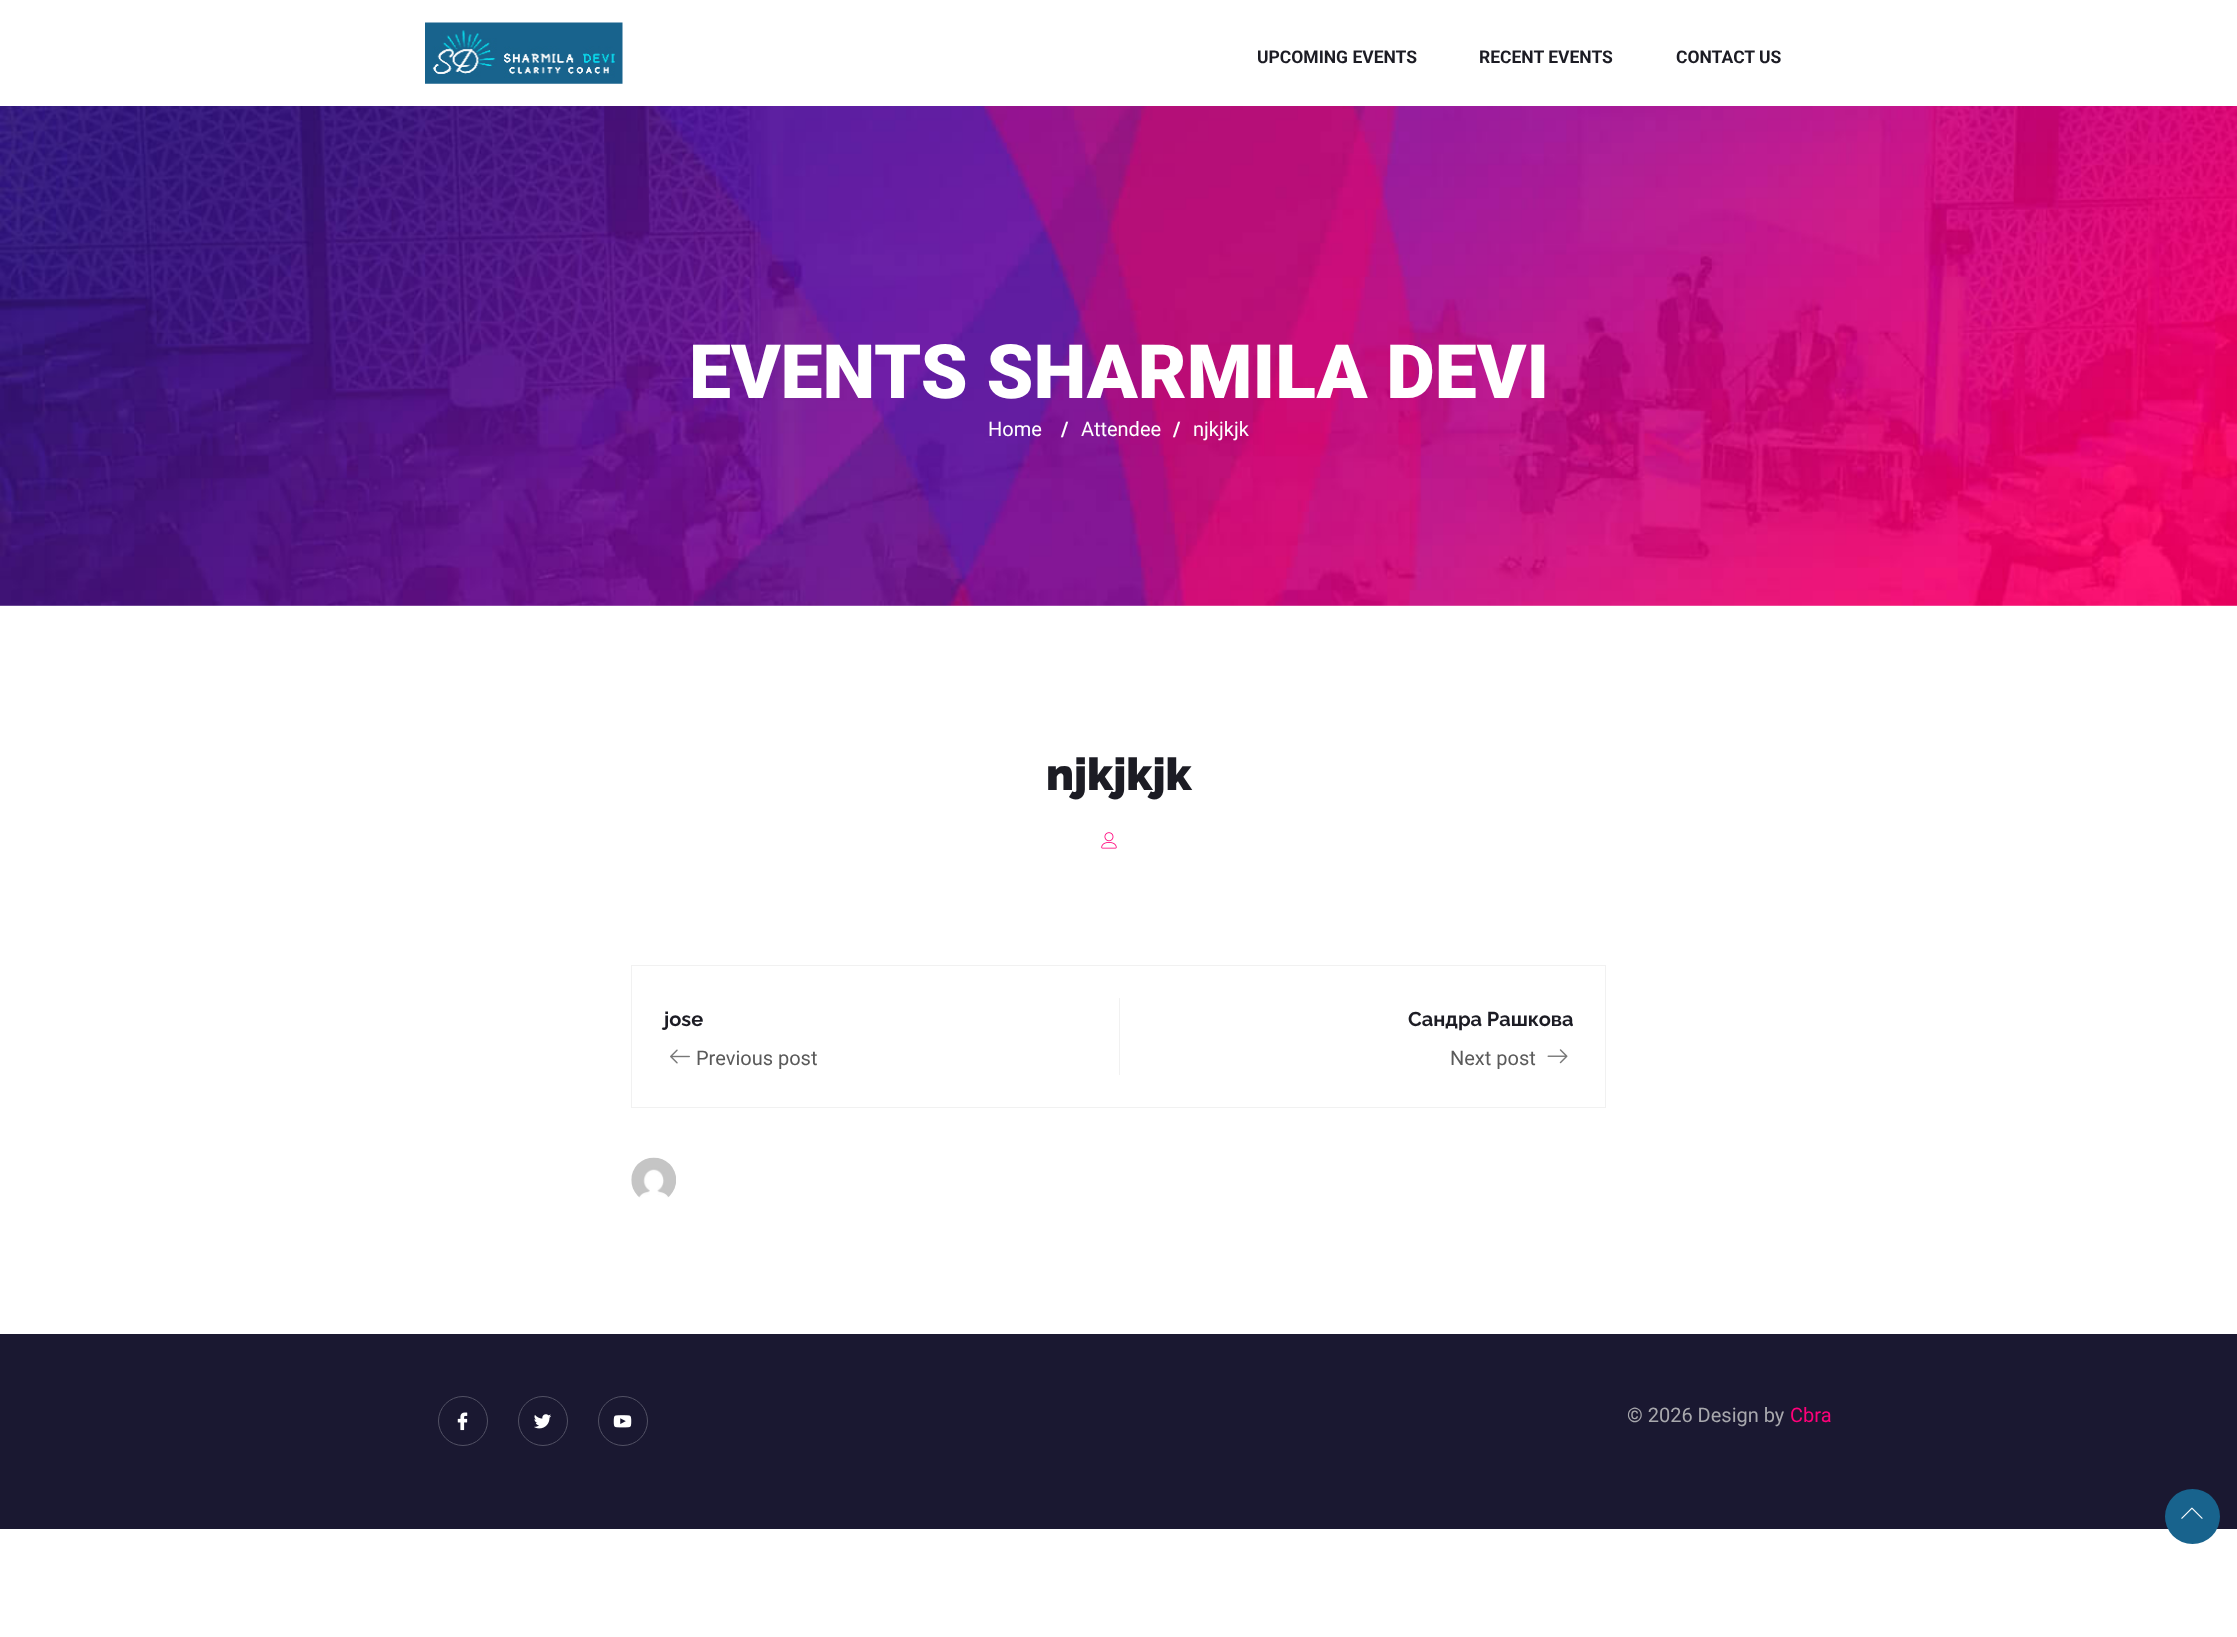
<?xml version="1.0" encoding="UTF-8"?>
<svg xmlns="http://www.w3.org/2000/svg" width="2237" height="1637">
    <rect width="100%" height="100%" fill="#FFFFFF"/>
    <image x="425" y="22" width="198" height="62" href="img_01.png"/>
    <text x="1257" y="63" font-family="Roboto" font-size="17.5" font-weight="700" fill="#1C1C24">UPCOMING EVENTS</text>
    <text x="1479" y="63" font-family="Roboto" font-size="17.5" font-weight="700" fill="#1C1C24">RECENT EVENTS</text>
    <text x="1676" y="63" font-family="Roboto" font-size="17.5" font-weight="700" fill="#1C1C24">CONTACT US</text>
    <image x="0" y="106" width="2237" height="500" href="img_02.png"/>
    <text x="689" y="398" font-family="Roboto" font-size="75" font-weight="900" fill="#FFFFFF">EVENTS SHARMILA DEVI</text>
    <text x="988" y="436" font-family="Roboto" font-size="20" fill="#FFFFFF">Home</text>
    <text x="1061" y="436" font-family="Roboto" font-size="20" font-weight="700" fill="#FFFFFF">/</text>
    <text x="1081" y="436" font-family="Roboto" font-size="20" fill="#FFFFFF">Attendee</text>
    <text x="1173" y="436" font-family="Roboto" font-size="20" font-weight="700" fill="#FFFFFF">/</text>
    <text x="1193" y="436" font-family="Roboto" font-size="20" fill="#FFFFFF">njkjkjk</text>
    <text x="1046" y="790" font-family="Raleway" font-size="45" font-weight="900" fill="#1C1C24">njkjkjk</text>
    <image x="1101" y="832" width="16" height="17" href="img_03.png"/>
    <rect x="631.5" y="965.5" width="974" height="142" fill="none" stroke="#F1F1F1"/>
    <text x="664" y="1026" font-family="Raleway" font-size="20" font-weight="700" fill="#1C1C24">jose</text>
    <image x="670" y="1049" width="20" height="15" href="img_04.png"/>
    <text x="696" y="1065" font-family="Roboto" font-size="20" fill="#5A5A5A">Previous post</text>
    <rect x="1119" y="998" width="1" height="77" fill="#F1F1F1"/>
    <text x="1408" y="1026" font-family="Raleway" font-size="20" font-weight="700" fill="#1C1C24">Сандра Рашкова</text>
    <text x="1450" y="1065" font-family="Roboto" font-size="20" fill="#5A5A5A">Next post</text>
    <image x="1547" y="1049" width="21" height="15" href="img_05.png"/>
    <image x="631" y="1157" width="45" height="41" href="img_06.png"/>
    <rect x="0" y="1334" width="2237" height="195" fill="#1A1831"/>
    <circle cx="463" cy="1421" r="24.5" fill="none" stroke="#525164"/>
    <image x="457" y="1412" width="11" height="19" href="img_07.png"/>
    <circle cx="543" cy="1421" r="24.5" fill="none" stroke="#525164"/>
    <image x="534" y="1414" width="17" height="15" href="img_08.png"/>
    <circle cx="623" cy="1421" r="24.5" fill="none" stroke="#525164"/>
    <image x="613" y="1415" width="19" height="13" href="img_09.png"/>
    <text x="1627" y="1422" font-family="Roboto" font-size="20" fill="#A8A8AD">© 2026 Design by</text>
    <text x="1790" y="1422" font-family="Roboto" font-size="20" fill="#FF007A">Cbra</text>
    <circle cx="2192.5" cy="1516.5" r="27.5" fill="#18638D"/>
    <image x="2181" y="1507" width="22" height="12" href="img_10.png"/>
</svg>
